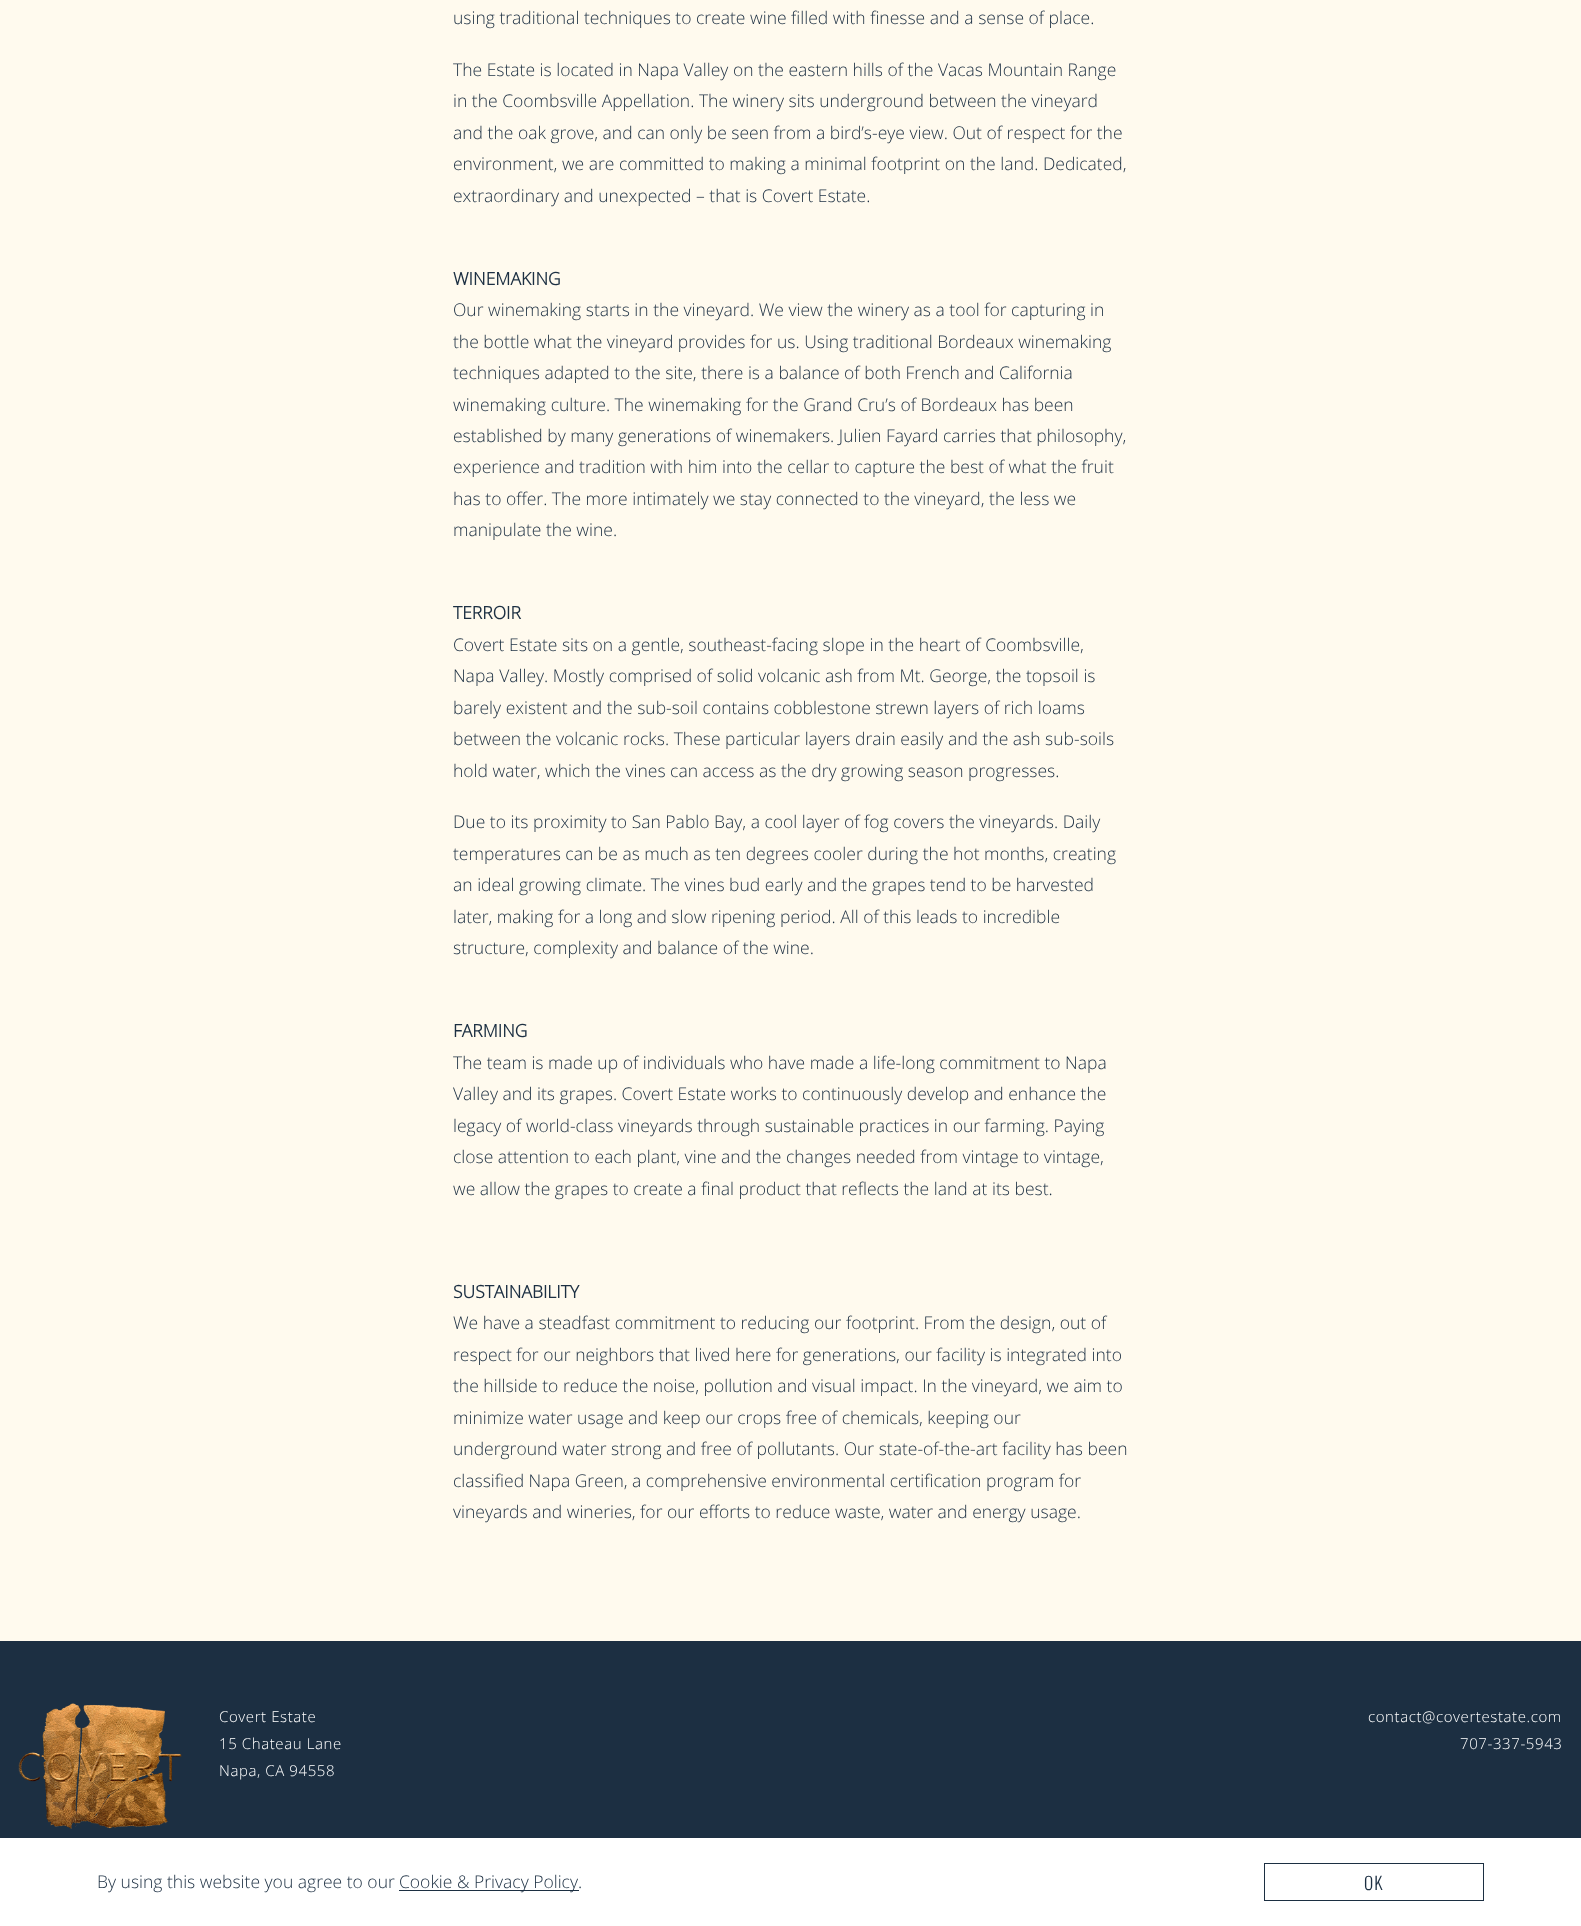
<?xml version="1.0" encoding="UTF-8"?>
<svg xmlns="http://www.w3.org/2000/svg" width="1581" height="1926">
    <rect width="100%" height="100%" fill="#FFFAEE"/>
    <text x="453" y="24" font-family="Open Sans" font-size="17.5" font-weight="300" fill="#1C2F42">using traditional techniques to create wine filled with finesse and a sense of place.</text>
    <text font-family="Open Sans" font-size="17.5" font-weight="300" fill="#1C2F42">
        <tspan x="453" y="76">The Estate is located in Napa Valley on the eastern hills of the Vacas Mountain Range</tspan>
        <tspan x="453" y="107">in the Coombsville Appellation. The winery sits underground between the vineyard</tspan>
        <tspan x="453" y="139">and the oak grove, and can only be seen from a bird’s-eye view. Out of respect for the</tspan>
        <tspan x="453" y="170">environment, we are committed to making a minimal footprint on the land. Dedicated,</tspan>
        <tspan x="453" y="202">extraordinary and unexpected – that is Covert Estate.</tspan>
    </text>
    <text x="453" y="285" font-family="Open Sans" font-size="17.5" font-weight="700" fill="#1C2F42">WINEMAKING</text>
    <text font-family="Open Sans" font-size="17.5" font-weight="300" fill="#1C2F42">
        <tspan x="453" y="316">Our winemaking starts in the vineyard. We view the winery as a tool for capturing in</tspan>
        <tspan x="453" y="348">the bottle what the vineyard provides for us. Using traditional Bordeaux winemaking</tspan>
        <tspan x="453" y="379">techniques adapted to the site, there is a balance of both French and California</tspan>
        <tspan x="453" y="411">winemaking culture. The winemaking for the Grand Cru’s of Bordeaux has been</tspan>
        <tspan x="453" y="442">established by many generations of winemakers. Julien Fayard carries that philosophy,</tspan>
        <tspan x="453" y="473">experience and tradition with him into the cellar to capture the best of what the fruit</tspan>
        <tspan x="453" y="505">has to offer. The more intimately we stay connected to the vineyard, the less we</tspan>
        <tspan x="453" y="536">manipulate the wine.</tspan>
    </text>
    <text x="453" y="619" font-family="Open Sans" font-size="17.5" font-weight="700" fill="#1C2F42">TERROIR</text>
    <text font-family="Open Sans" font-size="17.5" font-weight="300" fill="#1C2F42">
        <tspan x="453" y="651">Covert Estate sits on a gentle, southeast-facing slope in the heart of Coombsville,</tspan>
        <tspan x="453" y="682">Napa Valley. Mostly comprised of solid volcanic ash from Mt. George, the topsoil is</tspan>
        <tspan x="453" y="714">barely existent and the sub-soil contains cobblestone strewn layers of rich loams</tspan>
        <tspan x="453" y="745">between the volcanic rocks. These particular layers drain easily and the ash sub-soils</tspan>
        <tspan x="453" y="777">hold water, which the vines can access as the dry growing season progresses.</tspan>
    </text>
    <text font-family="Open Sans" font-size="17.5" font-weight="300" fill="#1C2F42">
        <tspan x="453" y="828">Due to its proximity to San Pablo Bay, a cool layer of fog covers the vineyards. Daily</tspan>
        <tspan x="453" y="860">temperatures can be as much as ten degrees cooler during the hot months, creating</tspan>
        <tspan x="453" y="891">an ideal growing climate. The vines bud early and the grapes tend to be harvested</tspan>
        <tspan x="453" y="923">later, making for a long and slow ripening period. All of this leads to incredible</tspan>
        <tspan x="453" y="954">structure, complexity and balance of the wine.</tspan>
    </text>
    <text x="453" y="1037" font-family="Open Sans" font-size="17.5" font-weight="700" fill="#1C2F42">FARMING</text>
    <text font-family="Open Sans" font-size="17.5" font-weight="300" fill="#1C2F42">
        <tspan x="453" y="1069">The team is made up of individuals who have made a life-long commitment to Napa</tspan>
        <tspan x="453" y="1100">Valley and its grapes. Covert Estate works to continuously develop and enhance the</tspan>
        <tspan x="453" y="1132">legacy of world-class vineyards through sustainable practices in our farming. Paying</tspan>
        <tspan x="453" y="1163">close attention to each plant, vine and the changes needed from vintage to vintage,</tspan>
        <tspan x="453" y="1195">we allow the grapes to create a final product that reflects the land at its best.</tspan>
    </text>
    <text x="453" y="1298" font-family="Open Sans" font-size="17.5" font-weight="700" fill="#1C2F42">SUSTAINABILITY</text>
    <text font-family="Open Sans" font-size="17.5" font-weight="300" fill="#1C2F42">
        <tspan x="453" y="1329">We have a steadfast commitment to reducing our footprint. From the design, out of</tspan>
        <tspan x="453" y="1361">respect for our neighbors that lived here for generations, our facility is integrated into</tspan>
        <tspan x="453" y="1392">the hillside to reduce the noise, pollution and visual impact. In the vineyard, we aim to</tspan>
        <tspan x="453" y="1424">minimize water usage and keep our crops free of chemicals, keeping our</tspan>
        <tspan x="453" y="1455">underground water strong and free of pollutants. Our state-of-the-art facility has been</tspan>
        <tspan x="453" y="1487">classified Napa Green, a comprehensive environmental certification program for</tspan>
        <tspan x="453" y="1518">vineyards and wineries, for our efforts to reduce waste, water and energy usage.</tspan>
    </text>
    <rect x="0" y="1641" width="1581" height="197" fill="#1C2F42"/>
    <image x="18" y="1703" width="164" height="126" href="img_01.png"/>
    <text font-family="Open Sans" font-size="15" font-weight="300" letter-spacing="0.6" fill="#FFFFFF">
        <tspan x="219" y="1722">Covert Estate</tspan>
        <tspan x="219" y="1749">15 Chateau Lane</tspan>
        <tspan x="219" y="1776">Napa, CA 94558</tspan>
    </text>
    <text x="1368" y="1722" font-family="Open Sans" font-size="15" font-weight="300" letter-spacing="0.6" fill="#FFFFFF">contact@covertestate.com</text>
    <text x="1460" y="1749" font-family="Open Sans" font-size="15" font-weight="300" letter-spacing="0.6" fill="#FFFFFF">707-337-5943</text>
    <rect x="0" y="1838" width="1581" height="88" fill="#FFFFFF"/>
    <text x="97" y="1888" font-family="Open Sans" font-size="17.5" font-weight="300" fill="#1C2F42">By using this website you agree to our</text>
    <rect x="399" y="1890" width="180" height="1" fill="#1C2F42"/>
    <text x="399" y="1888" font-family="Open Sans" font-size="17.5" font-weight="300" fill="#1C2F42">Cookie &amp; Privacy Policy.</text>
    <rect x="1264.5" y="1863.5" width="219" height="37" fill="none" stroke="#1C2F42"/>
    <text x="1364" y="1890" font-family="Oswald" font-size="17.5" font-weight="300" letter-spacing="1" fill="#1C2F42">OK</text>
</svg>
